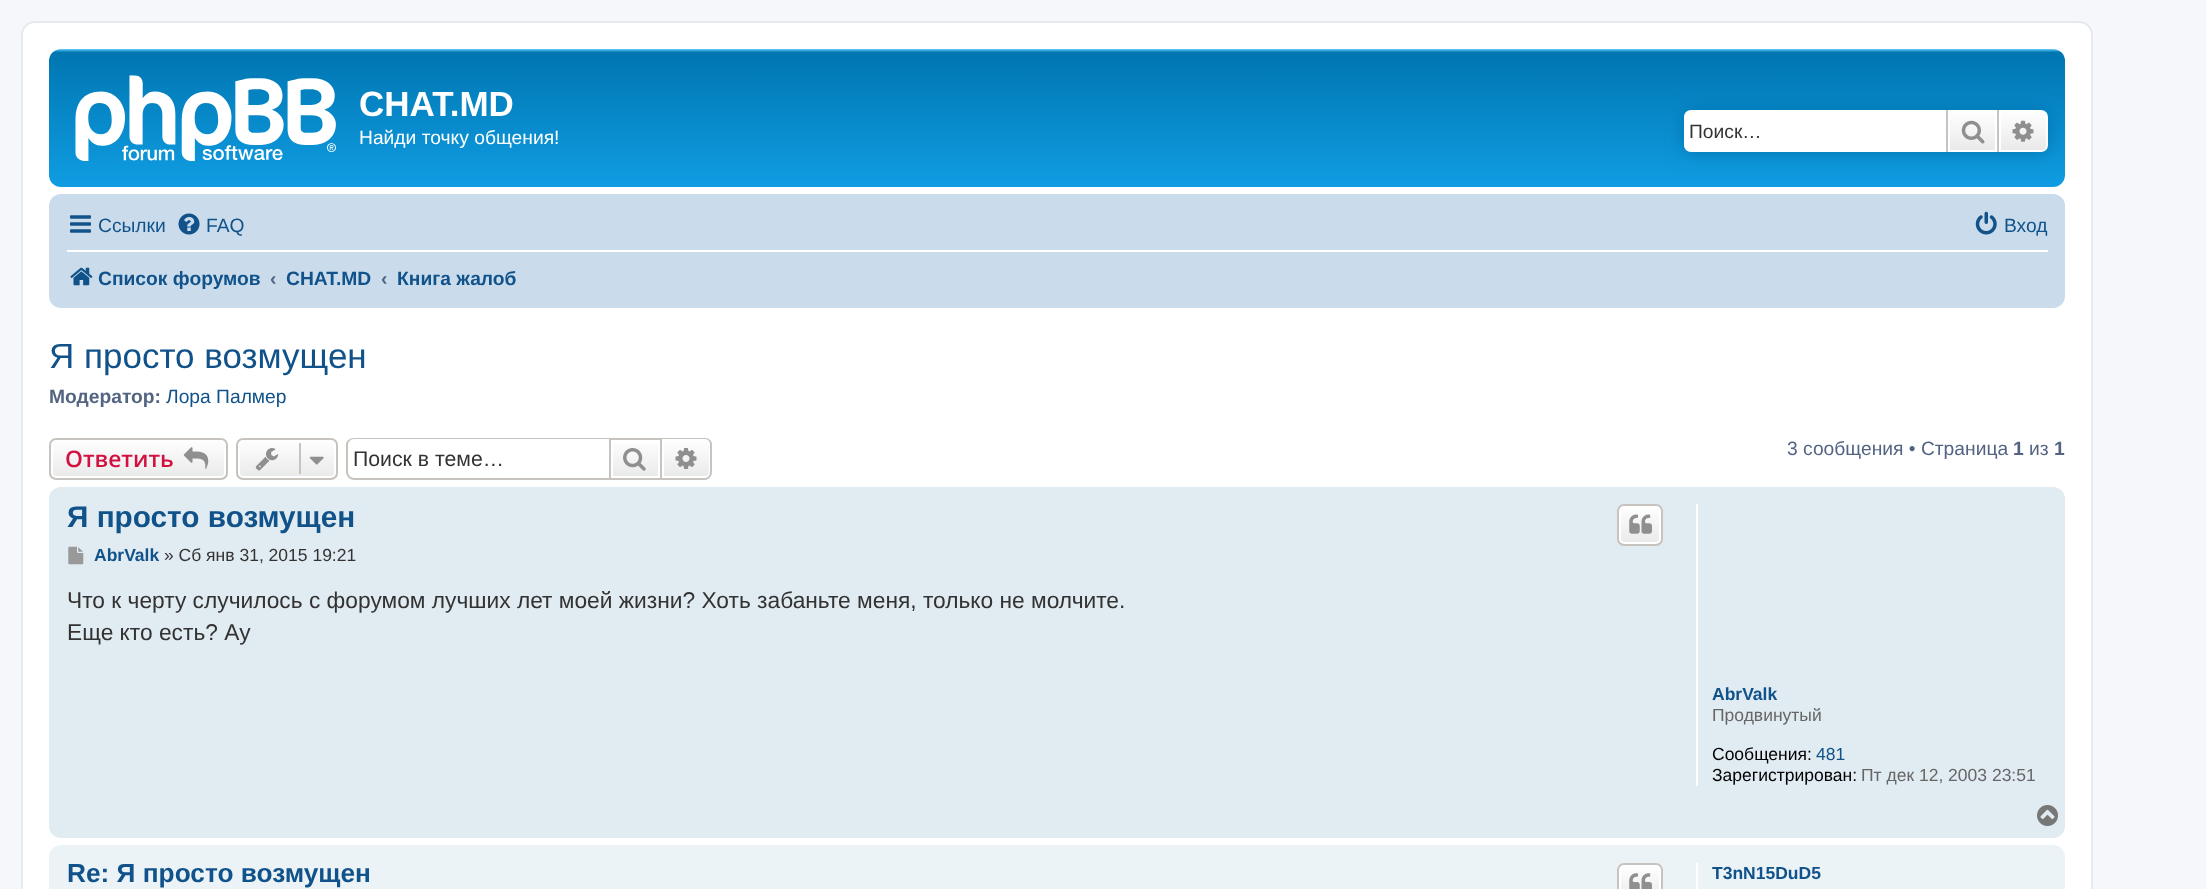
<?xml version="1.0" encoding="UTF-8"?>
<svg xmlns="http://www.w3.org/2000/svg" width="2206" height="889">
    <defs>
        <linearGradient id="g1" gradientUnits="userSpaceOnUse" x1="1057" y1="49" x2="1057" y2="210"><stop offset="0" stop-color="#6ACEFF"/><stop offset="0.02" stop-color="#0076B1"/><stop offset="1" stop-color="#12A3EB"/></linearGradient>
        <filter id="blur1" x="-50%" y="-200%" width="200%" height="500%"><feGaussianBlur stdDeviation="9"/></filter>
        <linearGradient id="g2" gradientUnits="userSpaceOnUse" x1="1972" y1="110" x2="1972" y2="152"><stop offset="0" stop-color="#FFFFFF"/><stop offset="1" stop-color="#E9E9E9"/></linearGradient>
        <linearGradient id="g3" gradientUnits="userSpaceOnUse" x1="2023" y1="110" x2="2023" y2="152"><stop offset="0" stop-color="#FFFFFF"/><stop offset="1" stop-color="#E9E9E9"/></linearGradient>
        <clipPath id="clip1"><rect x="49" y="438" width="179" height="42" rx="7"/></clipPath>
        <linearGradient id="g4" gradientUnits="userSpaceOnUse" x1="138" y1="439" x2="138" y2="478"><stop offset="0" stop-color="#FFFFFF"/><stop offset="1" stop-color="#E9E9E9"/></linearGradient>
        <clipPath id="clip2"><rect x="236" y="438" width="102" height="42" rx="7"/></clipPath>
        <linearGradient id="g5" gradientUnits="userSpaceOnUse" x1="287" y1="439" x2="287" y2="478"><stop offset="0" stop-color="#FFFFFF"/><stop offset="1" stop-color="#E9E9E9"/></linearGradient>
        <linearGradient id="g6" gradientUnits="userSpaceOnUse" x1="635" y1="439" x2="635" y2="478"><stop offset="0" stop-color="#FFFFFF"/><stop offset="1" stop-color="#E9E9E9"/></linearGradient>
        <linearGradient id="g7" gradientUnits="userSpaceOnUse" x1="686" y1="439" x2="686" y2="478"><stop offset="0" stop-color="#FFFFFF"/><stop offset="1" stop-color="#E9E9E9"/></linearGradient>
        <clipPath id="clip3"><rect x="1617" y="504" width="46" height="42" rx="7"/></clipPath>
        <linearGradient id="g8" gradientUnits="userSpaceOnUse" x1="1640" y1="506" x2="1640" y2="544"><stop offset="0" stop-color="#FFFFFF"/><stop offset="1" stop-color="#E9E9E9"/></linearGradient>
        <clipPath id="clip4"><rect x="1617" y="863" width="46" height="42" rx="7"/></clipPath>
        <linearGradient id="g9" gradientUnits="userSpaceOnUse" x1="1640" y1="865" x2="1640" y2="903"><stop offset="0" stop-color="#FFFFFF"/><stop offset="1" stop-color="#E9E9E9"/></linearGradient>
    </defs>
    <rect width="100%" height="100%" fill="#F5F7FA"/>
    <rect x="22" y="22" width="2070" height="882" rx="13" fill="#FFFFFF" stroke="#E6E9ED" stroke-width="2"/>
    <rect x="49" y="49" width="2016" height="138" rx="12" fill="url(#g1)"/>
    <image x="75" y="75" width="261" height="86" href="img_01.png"/>
    <text x="359" y="116" font-family="Liberation Sans" font-size="35" font-weight="700" fill="#FFFFFF">CHAT.MD</text>
    <text x="359" y="144" font-family="Liberation Sans" font-size="19.25" fill="#FFFFFF">Найди точку общения!</text>
    <rect x="1684" y="110" width="364" height="42" rx="7" fill="#0075B0" filter="url(#blur1)"/>
    <path d="M 1691 110 H 1946 V 152 H 1691 C 1687 152 1684 149 1684 145 V 117 C 1684 113 1687 110 1691 110 Z" fill="#FFFFFF"/>
    <text x="1689" y="138" font-family="Liberation Sans" font-size="19.25" fill="#333333">Поиск…</text>
    <rect x="1950" y="112" width="45" height="38" fill="url(#g2)"/>
    <rect x="1949" y="111" width="47" height="40" fill="none" stroke="#FFFFFF" stroke-width="2"/>
    <rect x="1997" y="110" width="2" height="42" fill="#C7C3BF"/>
    <rect x="1946" y="110" width="2" height="42" fill="#C7C3BF"/>
    <image x="1961" y="120" width="24" height="24" href="img_02.png"/>
    <path d="M 2000 111 H 2041 C 2044.5 111 2047 113.5 2047 117 V 145 C 2047 148.5 2044.5 151 2041 151 H 2000 Z" fill="url(#g3)" stroke="#FFFFFF" stroke-width="2"/>
    <image x="2012" y="120" width="22" height="22" href="img_03.png"/>
    <rect x="49" y="194" width="2016" height="114" rx="12" fill="#CADCEB"/>
    <image x="70" y="215" width="21" height="18" href="img_04.png"/>
    <text x="98" y="232" font-family="Liberation Sans" font-size="19.25" fill="#105289">Ссылки</text>
    <image x="178" y="213" width="22" height="22" href="img_05.png"/>
    <text x="206" y="232" font-family="Liberation Sans" font-size="19.25" fill="#105289">FAQ</text>
    <image x="1975" y="211" width="22" height="24" href="img_06.png"/>
    <text x="2004" y="232" font-family="Liberation Sans" font-size="19.25" fill="#105289">Вход</text>
    <rect x="67" y="250" width="1981" height="2" fill="#FFFFFF"/>
    <image x="70" y="267" width="23" height="19" href="img_07.png"/>
    <text x="98" y="285" font-family="Liberation Sans" font-size="19.25" font-weight="700" fill="#105289">Список форумов</text>
    <text x="270" y="285" font-family="Liberation Sans" font-size="19.25" font-weight="700" fill="#536482">‹</text>
    <text x="286" y="285" font-family="Liberation Sans" font-size="19.25" font-weight="700" fill="#105289">CHAT.MD</text>
    <text x="381" y="285" font-family="Liberation Sans" font-size="19.25" font-weight="700" fill="#536482">‹</text>
    <text x="397" y="285" font-family="Liberation Sans" font-size="19.25" font-weight="700" fill="#105289">Книга жалоб</text>
    <text x="49" y="368" font-family="Liberation Sans" font-size="35" fill="#105289">Я просто возмущен</text>
    <text x="49" y="403" font-family="Liberation Sans" font-size="19.25" font-weight="700" fill="#536482">Модератор:</text>
    <text x="166" y="403" font-family="Liberation Sans" font-size="19.25" fill="#105289">Лора Палмер</text>
    <g clip-path="url(#clip1)">
        <rect x="49" y="439" width="179" height="39" fill="url(#g4)"/>
    </g>
    <rect x="52" y="440" width="173" height="37" rx="4" fill="none" stroke="#FFFFFF" stroke-width="2"/>
    <rect x="50" y="439" width="177" height="40" rx="6" fill="none" stroke="#C7C3BF" stroke-width="2"/>
    <text x="65" y="467" font-family="Open Sans" font-size="22.75" font-weight="600" fill="#D31141">Ответить</text>
    <image x="183" y="447" width="26" height="22" href="img_08.png"/>
    <g clip-path="url(#clip2)">
        <rect x="236" y="439" width="102" height="39" fill="url(#g5)"/>
    </g>
    <rect x="239" y="440" width="96" height="37" rx="4" fill="none" stroke="#FFFFFF" stroke-width="2"/>
    <rect x="237" y="439" width="100" height="40" rx="6" fill="none" stroke="#C7C3BF" stroke-width="2"/>
    <image x="255" y="448" width="24" height="23" href="img_09.png"/>
    <rect x="299" y="443" width="2" height="31" fill="#C7C3BF"/>
    <image x="309" y="456" width="15" height="9" href="img_10.png"/>
    <path d="M 354 438 H 609 V 480 H 354 C 350 480 346 476 346 472 V 444 C 346 441 350 438 354 438 Z M 354 439 H 609 V 478 H 354 C 351 478 348 475 348 472 V 444 C 348 442 351 439 354 439 Z" fill="#C7C3BF" fill-rule="evenodd"/>
    <text x="353" y="466" font-family="Liberation Sans" font-size="21.25" fill="#333333">Поиск в теме…</text>
    <rect x="613" y="443" width="45" height="33" fill="url(#g6)"/>
    <rect x="610" y="439" width="51" height="40" fill="none" stroke="#C7C3BF" stroke-width="2"/>
    <image x="623" y="448" width="23" height="23" href="img_11.png"/>
    <path d="M 663 440 H 706 C 708 440 710 442 710 444 V 473 C 710 475 708 477 706 477 H 663 Z" fill="url(#g7)" stroke="#FFFFFF" stroke-width="2"/>
    <path d="M 662 438 H 705 C 709 438 712 441 712 444 V 472 C 712 476 709 480 705 480 H 662 Z M 662 439 H 705 C 708 439 710 442 710 444 V 472 C 710 475 708 478 705 478 H 662 Z" fill="#C7C3BF" fill-rule="evenodd"/>
    <image x="675" y="448" width="22" height="21" href="img_12.png"/>
    <text x="1787" y="455" font-family="Liberation Sans" font-size="19.25" fill="#536482">3 сообщения • Страница</text>
    <text x="2013" y="455" font-family="Liberation Sans" font-size="19.25" font-weight="700" fill="#536482">1</text>
    <text x="2029" y="455" font-family="Liberation Sans" font-size="19.25" fill="#536482">из</text>
    <text x="2054" y="455" font-family="Liberation Sans" font-size="19.25" font-weight="700" fill="#536482">1</text>
    <rect x="49" y="487" width="2016" height="351" rx="12" fill="#E1EBF2"/>
    <text x="67" y="527" font-family="Liberation Sans" font-size="29.75" font-weight="700" fill="#105289">Я просто возмущен</text>
    <g clip-path="url(#clip3)">
        <rect x="1617" y="506" width="46" height="38" fill="url(#g8)"/>
    </g>
    <rect x="1620" y="507" width="40" height="36" rx="4" fill="none" stroke="#FFFFFF" stroke-width="2"/>
    <rect x="1618" y="505" width="44" height="40" rx="6" fill="none" stroke="#C7C3BF" stroke-width="2"/>
    <image x="1629" y="514" width="23" height="20" href="img_13.png"/>
    <image x="68" y="546" width="16" height="19" href="img_14.png"/>
    <text x="94" y="561" font-family="Liberation Sans" font-size="17.5" font-weight="700" fill="#105289">AbrValk</text>
    <text x="164" y="561" font-family="Liberation Sans" font-size="17.5" fill="#333333">» Сб янв 31, 2015 19:21</text>
    <text font-family="Liberation Sans" font-size="22.75" fill="#333333">
        <tspan x="67" y="608">Что к черту случилось с форумом лучших лет моей жизни? Хоть забаньте меня, только не молчите.</tspan>
        <tspan x="67" y="640">Еще кто есть? Ау</tspan>
    </text>
    <rect x="1696" y="504" width="2" height="282" fill="#FFFFFF"/>
    <text x="1712" y="700" font-family="Liberation Sans" font-size="17.5" font-weight="700" fill="#105289">AbrValk</text>
    <text x="1712" y="721" font-family="Liberation Sans" font-size="17.5" fill="#666666">Продвинутый</text>
    <text x="1712" y="760" font-family="Liberation Sans" font-size="17.5" fill="#000000">Сообщения:</text>
    <text x="1816" y="760" font-family="Liberation Sans" font-size="17.5" fill="#105289">481</text>
    <text x="1712" y="781" font-family="Liberation Sans" font-size="17.5" fill="#000000">Зарегистрирован:</text>
    <text x="1861" y="781" font-family="Liberation Sans" font-size="17.5" fill="#666666">Пт дек 12, 2003 23:51</text>
    <image x="2037" y="805" width="21" height="21" href="img_15.png"/>
    <rect x="49" y="845" width="2016" height="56" rx="12" fill="#ECF3F7"/>
    <text x="67" y="882" font-family="Liberation Sans" font-size="26.25" font-weight="700" fill="#105289">Re: Я просто возмущен</text>
    <g clip-path="url(#clip4)">
        <rect x="1617" y="865" width="46" height="24" fill="url(#g9)"/>
    </g>
    <rect x="1620" y="866" width="40" height="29" rx="4" fill="none" stroke="#FFFFFF" stroke-width="2"/>
    <rect x="1618" y="864" width="44" height="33" rx="6" fill="none" stroke="#C7C3BF" stroke-width="2"/>
    <image x="1629" y="873" width="23" height="16" href="img_16.png"/>
    <rect x="1696" y="863" width="2" height="26" fill="#FFFFFF"/>
    <text x="1712" y="879" font-family="Liberation Sans" font-size="17.5" font-weight="700" fill="#105289">T3nN15DuD5</text>
</svg>
